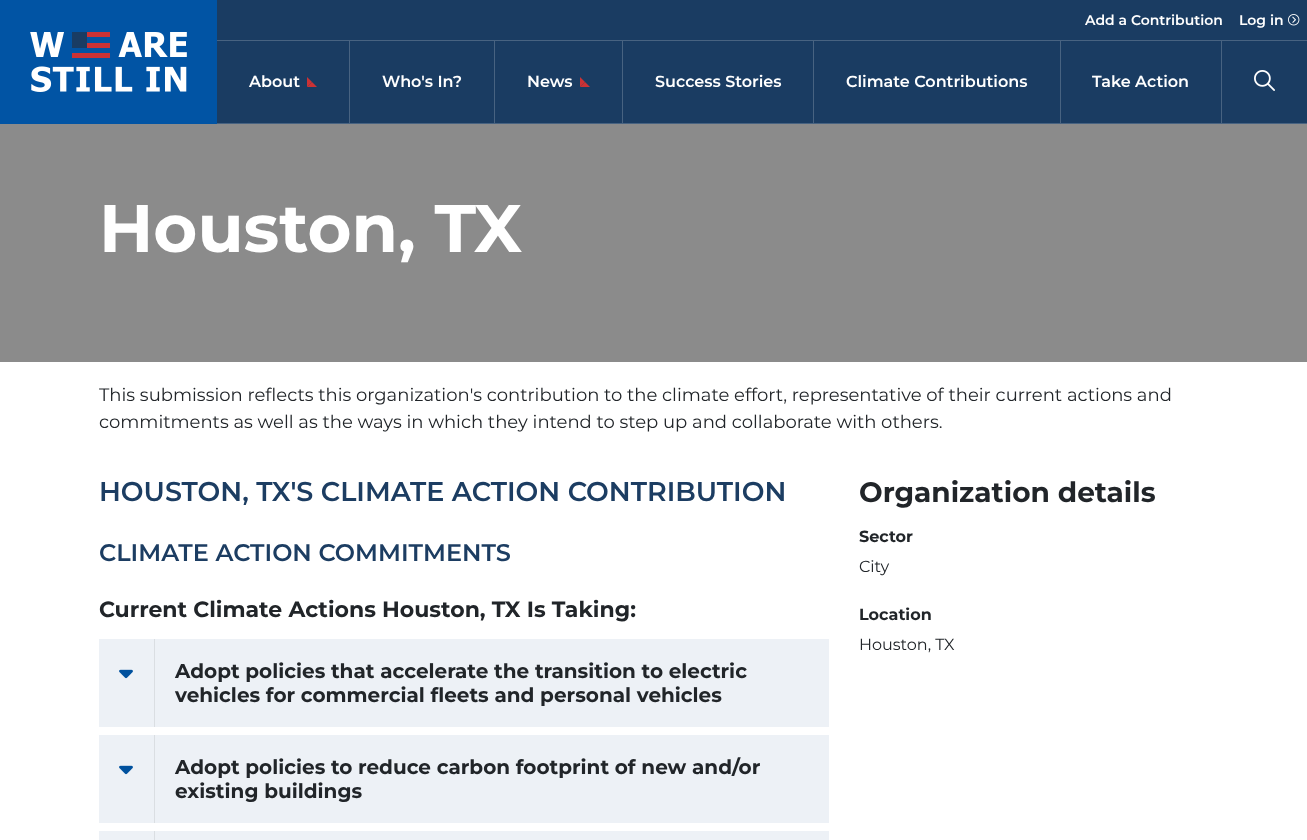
<?xml version="1.0" encoding="UTF-8"?>
<svg xmlns="http://www.w3.org/2000/svg" width="1307" height="840">
    <rect width="100%" height="100%" fill="#FFFFFF"/>
    <rect x="217" y="0" width="1090" height="123" fill="#1A3C62"/>
    <rect x="0" y="0" width="217" height="124" fill="#0154A4"/>
    <image x="30" y="32" width="157" height="60" href="img_01.png"/>
    <text x="1085" y="25" font-family="Montserrat" font-size="14" font-weight="600" fill="#FFFFFF">Add a Contribution</text>
    <text x="1239" y="25" font-family="Montserrat" font-size="14" font-weight="600" fill="#FFFFFF">Log in</text>
    <image x="1288" y="14" width="12" height="12" href="img_02.png"/>
    <rect x="217" y="40" width="1090" height="1" fill="#486381"/>
    <rect x="217" y="123" width="1090" height="1" fill="#486381"/>
    <rect x="349" y="41" width="1" height="82" fill="#486381"/>
    <text x="249" y="87" font-family="Montserrat" font-size="16" font-weight="600" fill="#FFFFFF">About</text>
    <path d="M 317 87 H 307 L 312 82 Z" fill="#CB3235"/>
    <path d="M 307 87 V 77 L 312 82 Z" fill="#CB3235"/>
    <rect x="494" y="41" width="1" height="82" fill="#486381"/>
    <text x="382" y="87" font-family="Montserrat" font-size="16" font-weight="600" fill="#FFFFFF">Who's In?</text>
    <rect x="622" y="41" width="1" height="82" fill="#486381"/>
    <text x="527" y="87" font-family="Montserrat" font-size="16" font-weight="600" fill="#FFFFFF">News</text>
    <path d="M 590 87 H 580 L 585 82 Z" fill="#CB3235"/>
    <path d="M 580 87 V 77 L 585 82 Z" fill="#CB3235"/>
    <rect x="813" y="41" width="1" height="82" fill="#486381"/>
    <text x="655" y="87" font-family="Montserrat" font-size="16" font-weight="600" fill="#FFFFFF">Success Stories</text>
    <rect x="1060" y="41" width="1" height="82" fill="#486381"/>
    <text x="846" y="87" font-family="Montserrat" font-size="16" font-weight="600" fill="#FFFFFF">Climate Contributions</text>
    <rect x="1221" y="41" width="1" height="82" fill="#486381"/>
    <text x="1092" y="87" font-family="Montserrat" font-size="16" font-weight="600" fill="#FFFFFF">Take Action</text>
    <image x="1254" y="70" width="21" height="21" href="img_03.png"/>
    <rect x="0" y="124" width="1307" height="238" fill="#8B8B8B"/>
    <text x="99" y="252" font-family="Montserrat" font-size="67.25" font-weight="700" fill="#FFFFFF">Houston, TX</text>
    <text font-family="Montserrat" font-size="18" fill="#212529">
        <tspan x="99" y="401">This submission reflects this organization's contribution to the climate effort, representative of their current actions and</tspan>
        <tspan x="99" y="428">commitments as well as the ways in which they intend to step up and collaborate with others.</tspan>
    </text>
    <text x="99" y="501" font-family="Montserrat" font-size="27" font-weight="600" fill="#1C3D62">HOUSTON, TX'S CLIMATE ACTION CONTRIBUTION</text>
    <text x="99" y="561" font-family="Montserrat" font-size="24" font-weight="600" fill="#1C3D62">CLIMATE ACTION COMMITMENTS</text>
    <text x="99" y="617" font-family="Montserrat" font-size="22" font-weight="700" fill="#212529">Current Climate Actions Houston, TX Is Taking:</text>
    <rect x="99" y="639" width="730" height="88" fill="#EDF1F6"/>
    <image x="119" y="669" width="14" height="10" href="img_04.png"/>
    <rect x="154" y="639" width="1" height="88" fill="#DADEE2"/>
    <text font-family="Montserrat" font-size="20" font-weight="700" fill="#212529">
        <tspan x="175" y="678">Adopt policies that accelerate the transition to electric</tspan>
        <tspan x="175" y="702">vehicles for commercial fleets and personal vehicles</tspan>
    </text>
    <rect x="99" y="735" width="730" height="88" fill="#EDF1F6"/>
    <image x="119" y="765" width="14" height="10" href="img_04.png"/>
    <rect x="154" y="735" width="1" height="88" fill="#DADEE2"/>
    <text font-family="Montserrat" font-size="20" font-weight="700" fill="#212529">
        <tspan x="175" y="774">Adopt policies to reduce carbon footprint of new and/or</tspan>
        <tspan x="175" y="798">existing buildings</tspan>
    </text>
    <rect x="99" y="831" width="730" height="9" fill="#EDF1F6"/>
    <rect x="154" y="831" width="1" height="9" fill="#DADEE2"/>
    <text x="859" y="502" font-family="Montserrat" font-size="28" font-weight="700" fill="#212529">Organization details</text>
    <text x="859" y="542" font-family="Montserrat" font-size="16" font-weight="700" fill="#212529">Sector</text>
    <text x="859" y="572" font-family="Montserrat" font-size="16" fill="#212529">City</text>
    <text x="859" y="620" font-family="Montserrat" font-size="16" font-weight="700" fill="#212529">Location</text>
    <text x="859" y="650" font-family="Montserrat" font-size="16" fill="#212529">Houston, TX</text>
</svg>
